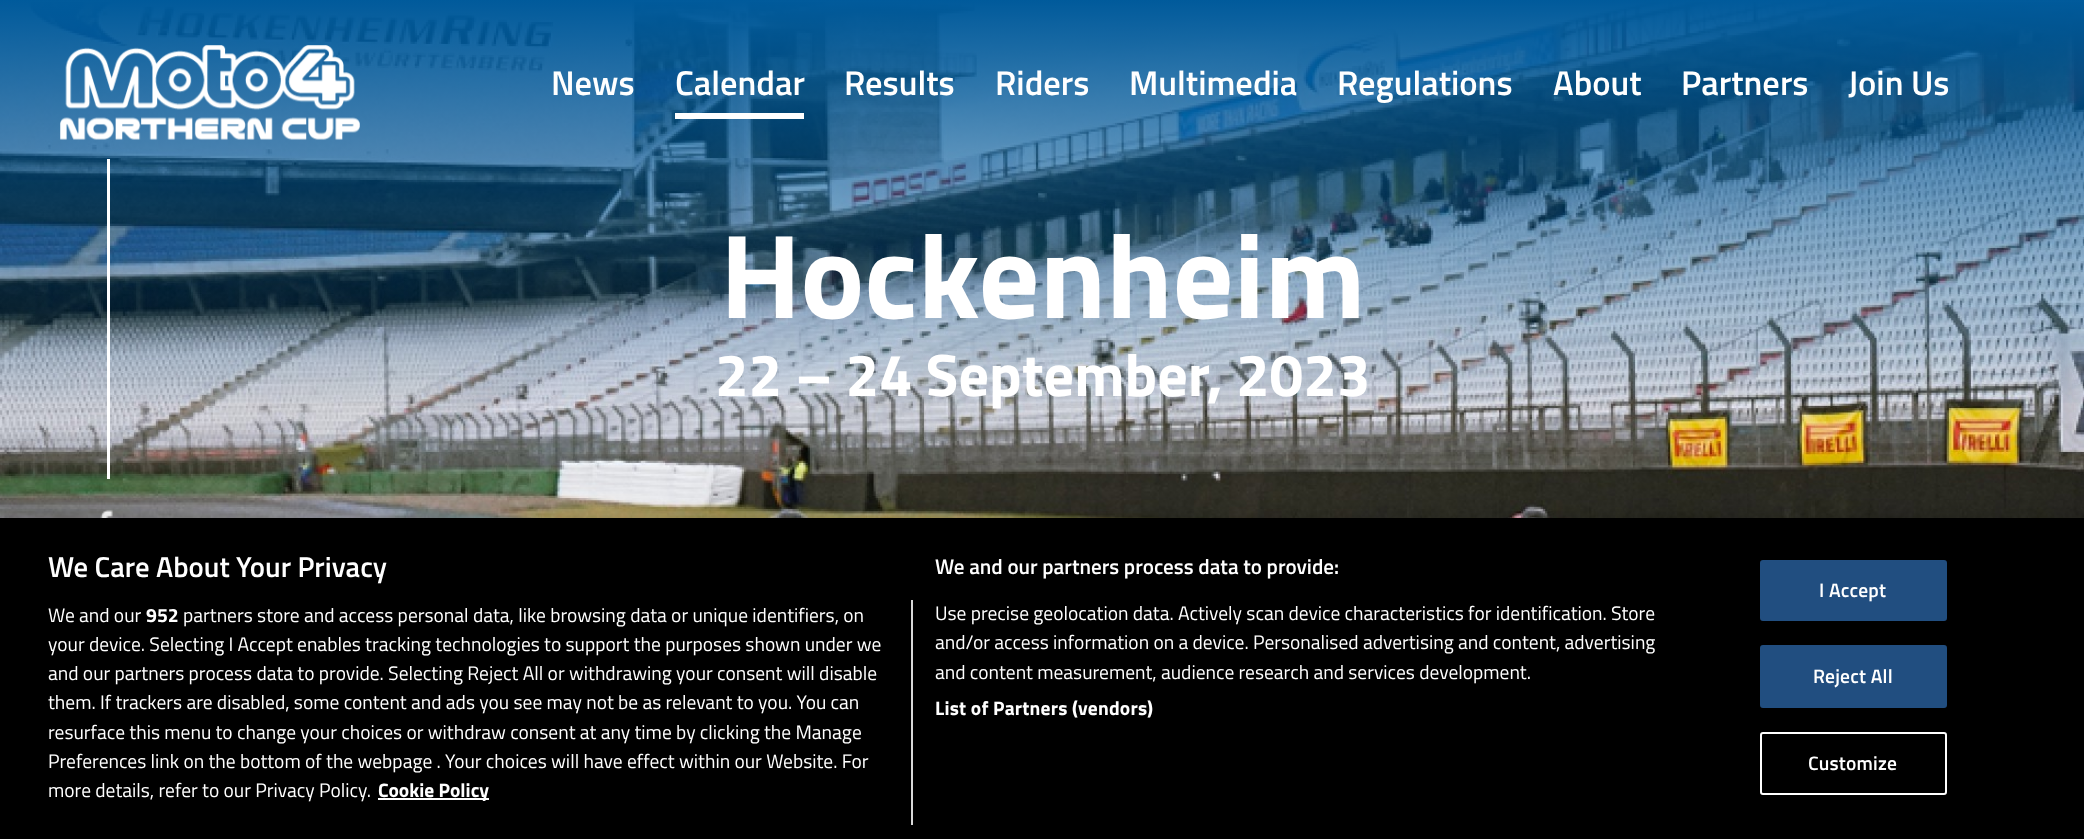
<?xml version="1.0" encoding="UTF-8"?>
<svg xmlns="http://www.w3.org/2000/svg" width="2084" height="839">
    <defs>
        <linearGradient id="g1" gradientUnits="userSpaceOnUse" x1="1043" y1="0" x2="1043" y2="588"><stop offset="0" stop-color="#005A9B"/><stop offset="0.7" stop-color="#005A9B" stop-opacity="0"/><stop offset="1" stop-color="#005A9B" stop-opacity="0"/></linearGradient>
        <filter id="blur1" x="-50%" y="-200%" width="200%" height="500%"><feGaussianBlur stdDeviation="13.5"/></filter>
    </defs>
    <rect width="100%" height="100%" fill="#FFFFFF"/>
    <image x="0" y="2" width="2084" height="516" href="img_03.png"/>
    <rect x="0" y="0" width="2084" height="403" fill="url(#g1)"/>
    <image x="60" y="45" width="300" height="95" href="img_01.png"/>
    <text x="551" y="95" font-family="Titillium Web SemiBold" font-size="34.5" font-weight="600" fill="#FFFFFF">News</text>
    <text x="675" y="95" font-family="Titillium Web SemiBold" font-size="34.5" font-weight="600" fill="#FFFFFF">Calendar</text>
    <rect x="675" y="113" width="129" height="6" fill="#FFFFFF"/>
    <text x="844" y="95" font-family="Titillium Web SemiBold" font-size="34.5" font-weight="600" fill="#FFFFFF">Results</text>
    <text x="995" y="95" font-family="Titillium Web SemiBold" font-size="34.5" font-weight="600" fill="#FFFFFF">Riders</text>
    <text x="1129" y="95" font-family="Titillium Web SemiBold" font-size="34.5" font-weight="600" fill="#FFFFFF">Multimedia</text>
    <text x="1337" y="95" font-family="Titillium Web SemiBold" font-size="34.5" font-weight="600" fill="#FFFFFF">Regulations</text>
    <text x="1553" y="95" font-family="Titillium Web SemiBold" font-size="34.5" font-weight="600" fill="#FFFFFF">About</text>
    <text x="1681" y="95" font-family="Titillium Web SemiBold" font-size="34.5" font-weight="600" fill="#FFFFFF">Partners</text>
    <text x="1848" y="95" font-family="Titillium Web SemiBold" font-size="34.5" font-weight="600" fill="#FFFFFF">Join Us</text>
    <rect x="107" y="159" width="3" height="320" fill="#FFFFFF"/>
    <image x="100" y="509" width="13" height="9" href="img_02.png"/>
    <text x="720" y="318" font-family="Titillium Web" font-size="120" font-weight="700" fill="#FFFFFF">Hockenheim</text>
    <text x="715" y="396" font-family="Titillium Web" font-size="60" font-weight="700" fill="#FFFFFF">22 – 24 September, 2023</text>
    <rect x="0" y="518" width="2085" height="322" fill="#000000" fill-opacity="0.2" filter="url(#blur1)"/>
    <rect x="0" y="518" width="2084" height="321" fill="#000000"/>
    <text x="48" y="577" font-family="Titillium Web SemiBold" font-size="28.75" font-weight="600" fill="#FFFFFF">We Care About Your Privacy</text>
    <text x="935" y="574" font-family="Titillium Web SemiBold" font-size="21.1" font-weight="600" fill="#FFFFFF">We and our partners process data to provide:</text>
    <text font-family="Titillium Web" font-size="19.5" fill="#FFFFFF">
        <tspan x="935" y="620">Use precise geolocation data. Actively scan device characteristics for identification. Store</tspan>
        <tspan x="935" y="649">and/or access information on a device. Personalised advertising and content, advertising</tspan>
        <tspan x="935" y="679">and content measurement, audience research and services development.</tspan>
    </text>
    <text x="935" y="715" font-family="Titillium Web" font-size="19.5" font-weight="700" letter-spacing="0.2" fill="#FFFFFF">List of Partners (vendors)</text>
    <rect x="911" y="600" width="2" height="225" fill="#D8D8D8"/>
    <text x="48" y="622" font-family="Titillium Web" font-size="19.5" fill="#FFFFFF">We and our</text>
    <text x="146" y="622" font-family="Titillium Web" font-size="19.5" font-weight="700" fill="#FFFFFF">952</text>
    <text x="183" y="622" font-family="Titillium Web" font-size="19.5" fill="#FFFFFF">partners store and access personal data, like browsing data or unique identifiers, on</text>
    <text font-family="Titillium Web" font-size="19.5" fill="#FFFFFF">
        <tspan x="48" y="651">your device. Selecting I Accept enables tracking technologies to support the purposes shown under we</tspan>
        <tspan x="48" y="680">and our partners process data to provide. Selecting Reject All or withdrawing your consent will disable</tspan>
        <tspan x="48" y="709">them. If trackers are disabled, some content and ads you see may not be as relevant to you. You can</tspan>
        <tspan x="48" y="739">resurface this menu to change your choices or withdraw consent at any time by clicking the Manage</tspan>
        <tspan x="48" y="768">Preferences link on the bottom of the webpage . Your choices will have effect within our Website. For</tspan>
        <tspan x="48" y="797">more details, refer to our Privacy Policy.</tspan>
    </text>
    <rect x="378" y="798" width="111" height="2" fill="#FFFFFF"/>
    <text x="378" y="797" font-family="Titillium Web" font-size="19.5" font-weight="700" fill="#FFFFFF">Cookie Policy</text>
    <rect x="1761" y="561" width="185" height="59" rx="2" fill="#214E80" stroke="#214E80" stroke-width="2"/>
    <text x="1819" y="597" font-family="Titillium Web SemiBold" font-size="19.5" font-weight="600" letter-spacing="0.2" fill="#FFFFFF">I Accept</text>
    <rect x="1761" y="646" width="185" height="61" rx="2" fill="#214E80" stroke="#214E80" stroke-width="2"/>
    <text x="1813" y="683" font-family="Titillium Web SemiBold" font-size="19.5" font-weight="600" letter-spacing="0.2" fill="#FFFFFF">Reject All</text>
    <rect x="1761" y="733" width="185" height="61" rx="2" fill="none" stroke="#FFFFFF" stroke-width="2"/>
    <text x="1808" y="770" font-family="Titillium Web SemiBold" font-size="19.5" font-weight="600" letter-spacing="0.2" fill="#FFFFFF">Customize</text>
</svg>
